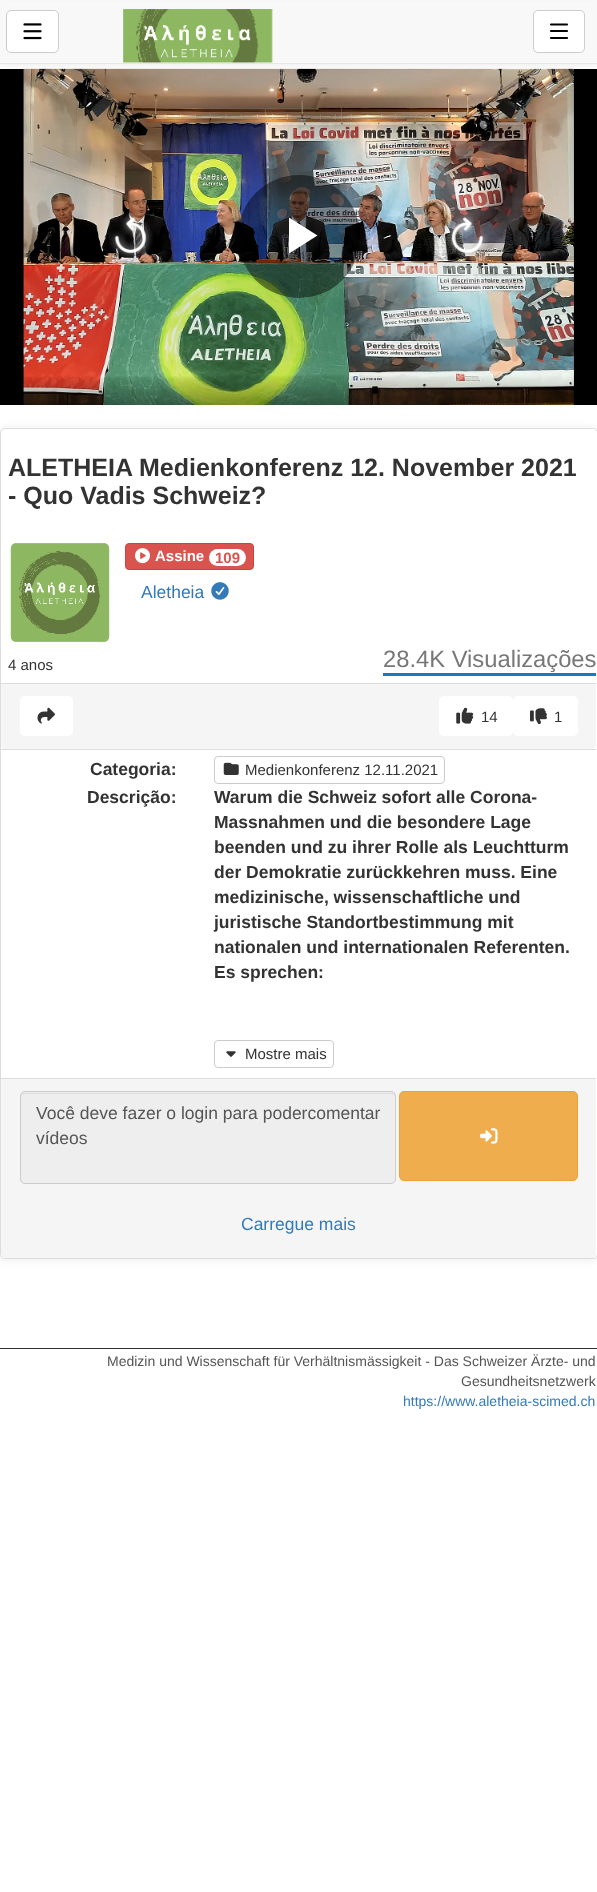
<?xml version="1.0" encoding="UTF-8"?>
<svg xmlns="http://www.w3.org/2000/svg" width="597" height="1892">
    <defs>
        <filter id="blur1" x="-50%" y="-200%" width="200%" height="500%"><feGaussianBlur stdDeviation="5"/></filter>
    </defs>
    <rect width="100%" height="100%" fill="#FFFFFF"/>
    <rect x="0" y="69" width="597" height="336" fill="#000000"/>
    <image x="23" y="68" width="551" height="337" href="img_03.png"/>
    <image x="23" y="68" width="551" height="337" href="img_04.png"/>
    <rect x="0" y="1" width="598" height="64" fill="#000000" fill-opacity="0.08" filter="url(#blur1)"/>
    <rect x="0" y="1" width="597" height="62" fill="#F8F8F8"/>
    <rect x="0" y="63" width="597" height="1" fill="#E7E7E7"/>
    <rect x="6.5" y="10.5" width="52" height="42" rx="4.5" fill="#FFFFFF" stroke="#CCCCCC"/>
    <image x="23" y="23" width="19" height="17" href="img_01.png"/>
    <image x="123" y="9" width="150" height="54" href="img_02.png"/>
    <rect x="533.5" y="10.5" width="51" height="42" rx="4.5" fill="#FFFFFF" stroke="#CCCCCC"/>
    <path d="M 567 24.5 H 551 M 567 31 H 551 M 551 38 H 567" fill="none" stroke="#000000" stroke-width="2.2" stroke-linecap="round"/>
    <image x="109" y="212" width="380" height="48" href="img_05.png"/>
    <rect x="238" y="175" width="122" height="123" rx="61" fill="#000000" fill-opacity="0.45"/>
    <path d="M 289 217.5 V 253.5 L 317.5 235.5 Z" fill="#FFFFFF"/>
    <rect x="0" y="429" width="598" height="831" rx="5" fill="#000000" fill-opacity="0.08" filter="url(#blur1)"/>
    <rect x="0.5" y="428.5" width="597" height="830" rx="4.5" fill="#FFFFFF" stroke="#DDDDDD"/>
    <text font-family="Liberation Sans" font-size="25" font-weight="700" fill="#333333">
        <tspan x="8" y="476">ALETHEIA Medienkonferenz 12. November 2021</tspan>
        <tspan x="8" y="504">- Quo Vadis Schweiz?</tspan>
    </text>
    <image x="10" y="543" width="100" height="99" href="img_06.png"/>
    <rect x="125.5" y="543.5" width="128" height="26" rx="3.5" fill="#D9534F" stroke="#D43F3A"/>
    <image x="135" y="548" width="15" height="16" href="img_07.png"/>
    <text x="155" y="561" font-family="Liberation Sans" font-size="15" font-weight="700" fill="#FFFFFF">Assine</text>
    <rect x="209" y="549" width="37" height="17" rx="8.5" fill="#FFFFFF"/>
    <text x="215" y="563" font-family="Liberation Sans" font-size="15" font-weight="700" fill="#D9534F">109</text>
    <text x="141" y="598" font-family="Liberation Sans" font-size="17.5" fill="#337AB7">Aletheia</text>
    <image x="211" y="582" width="18" height="18" href="img_08.png"/>
    <text x="8" y="670" font-family="Liberation Sans" font-size="15" fill="#333333">4 anos</text>
    <rect x="383" y="673" width="213" height="3" fill="#167AC6"/>
    <text x="383" y="667" font-family="Liberation Sans" font-size="23.75" fill="#777777">28.4K Visualizações</text>
    <path d="M 1 683 H 596 V 745 C 596 747 594 749 592 749 H 5 C 3 749 1 747 1 745 Z" fill="#F5F5F5"/>
    <rect x="1" y="683" width="595" height="1" fill="#DDDDDD"/>
    <rect x="20" y="696" width="53" height="40" rx="5" fill="#FFFFFF"/>
    <image x="37" y="707" width="18" height="17" href="img_09.png"/>
    <rect x="439" y="696" width="74" height="40" rx="5" fill="#FFFFFF"/>
    <image x="456" y="707" width="18" height="17" href="img_10.png"/>
    <text x="481" y="722" font-family="Liberation Sans" font-size="15" fill="#333333">14</text>
    <rect x="513" y="696" width="65" height="40" rx="5" fill="#FFFFFF"/>
    <image x="530" y="708" width="17" height="17" href="img_11.png"/>
    <text x="554" y="722" font-family="Liberation Sans" font-size="15" fill="#333333">1</text>
    <rect x="1" y="749" width="595" height="1" fill="#DDDDDD"/>
    <text x="90" y="775" font-family="Liberation Sans" font-size="17.5" font-weight="700" fill="#333333">Categoria:</text>
    <rect x="214.5" y="756.5" width="230" height="27" rx="3.5" fill="none" stroke="#CCCCCC"/>
    <image x="223" y="762" width="16" height="13" href="img_12.png"/>
    <text x="245" y="775" font-family="Liberation Sans" font-size="15" fill="#333333">Medienkonferenz 12.11.2021</text>
    <text x="87" y="803" font-family="Liberation Sans" font-size="17.5" font-weight="700" fill="#333333">Descrição:</text>
    <text font-family="Liberation Sans" font-size="17.5" font-weight="700" fill="#333333">
        <tspan x="214" y="803">Warum die Schweiz sofort alle Corona-</tspan>
        <tspan x="214" y="828">Massnahmen und die besondere Lage</tspan>
        <tspan x="214" y="853">beenden und zu ihrer Rolle als Leuchtturm</tspan>
        <tspan x="214" y="878">der Demokratie zurückkehren muss. Eine</tspan>
        <tspan x="214" y="903">medizinische, wissenschaftliche und</tspan>
        <tspan x="214" y="928">juristische Standortbestimmung mit</tspan>
        <tspan x="214" y="953">nationalen und internationalen Referenten.</tspan>
        <tspan x="214" y="978">Es sprechen:</tspan>
    </text>
    <rect x="214.5" y="1040.5" width="119" height="27" rx="3.5" fill="none" stroke="#CCCCCC"/>
    <image x="226" y="1051" width="10" height="6" href="img_13.png"/>
    <text x="245" y="1059" font-family="Liberation Sans" font-size="15" fill="#333333">Mostre mais</text>
    <path d="M 1 1078 H 596 V 1254 C 596 1256 594 1258 592 1258 H 5 C 3 1258 1 1256 1 1254 Z" fill="#F5F5F5"/>
    <rect x="1" y="1078" width="595" height="1" fill="#DDDDDD"/>
    <rect x="20" y="1091" width="376" height="93" rx="5" fill="#EEEEEE"/>
    <path d="M 25 1094 H 391 C 393 1094 395 1095 395 1098 C 395 1095 394 1093 391 1093 H 25 C 22 1093 21 1095 21 1098 C 21 1095 23 1094 25 1094 Z" fill="#DCDCDC"/>
    <rect x="20.5" y="1091.5" width="375" height="92" rx="4.5" fill="none" stroke="#CCCCCC"/>
    <text font-family="Liberation Sans" font-size="17.5" fill="#555555">
        <tspan x="36" y="1119">Você deve fazer o login para podercomentar</tspan>
        <tspan x="36" y="1144">vídeos</tspan>
    </text>
    <rect x="399.5" y="1091.5" width="178" height="89" rx="4.5" fill="#F0AD4E" stroke="#EEA236"/>
    <image x="480" y="1128" width="18" height="16" href="img_14.png"/>
    <text x="241" y="1230" font-family="Liberation Sans" font-size="17.5" fill="#337AB7">Carregue mais</text>
    <rect x="0" y="1348" width="597" height="1" fill="#323232"/>
    <text x="107" y="1366" font-family="Liberation Sans" font-size="14" fill="#555555">Medizin und Wissenschaft für Verhältnismässigkeit - Das Schweizer Ärzte- und</text>
    <text x="461" y="1386" font-family="Liberation Sans" font-size="14" fill="#555555">Gesundheitsnetzwerk</text>
    <text x="403" y="1406" font-family="Liberation Sans" font-size="14" fill="#337AB7">https://www.aletheia-scimed.ch</text>
</svg>
